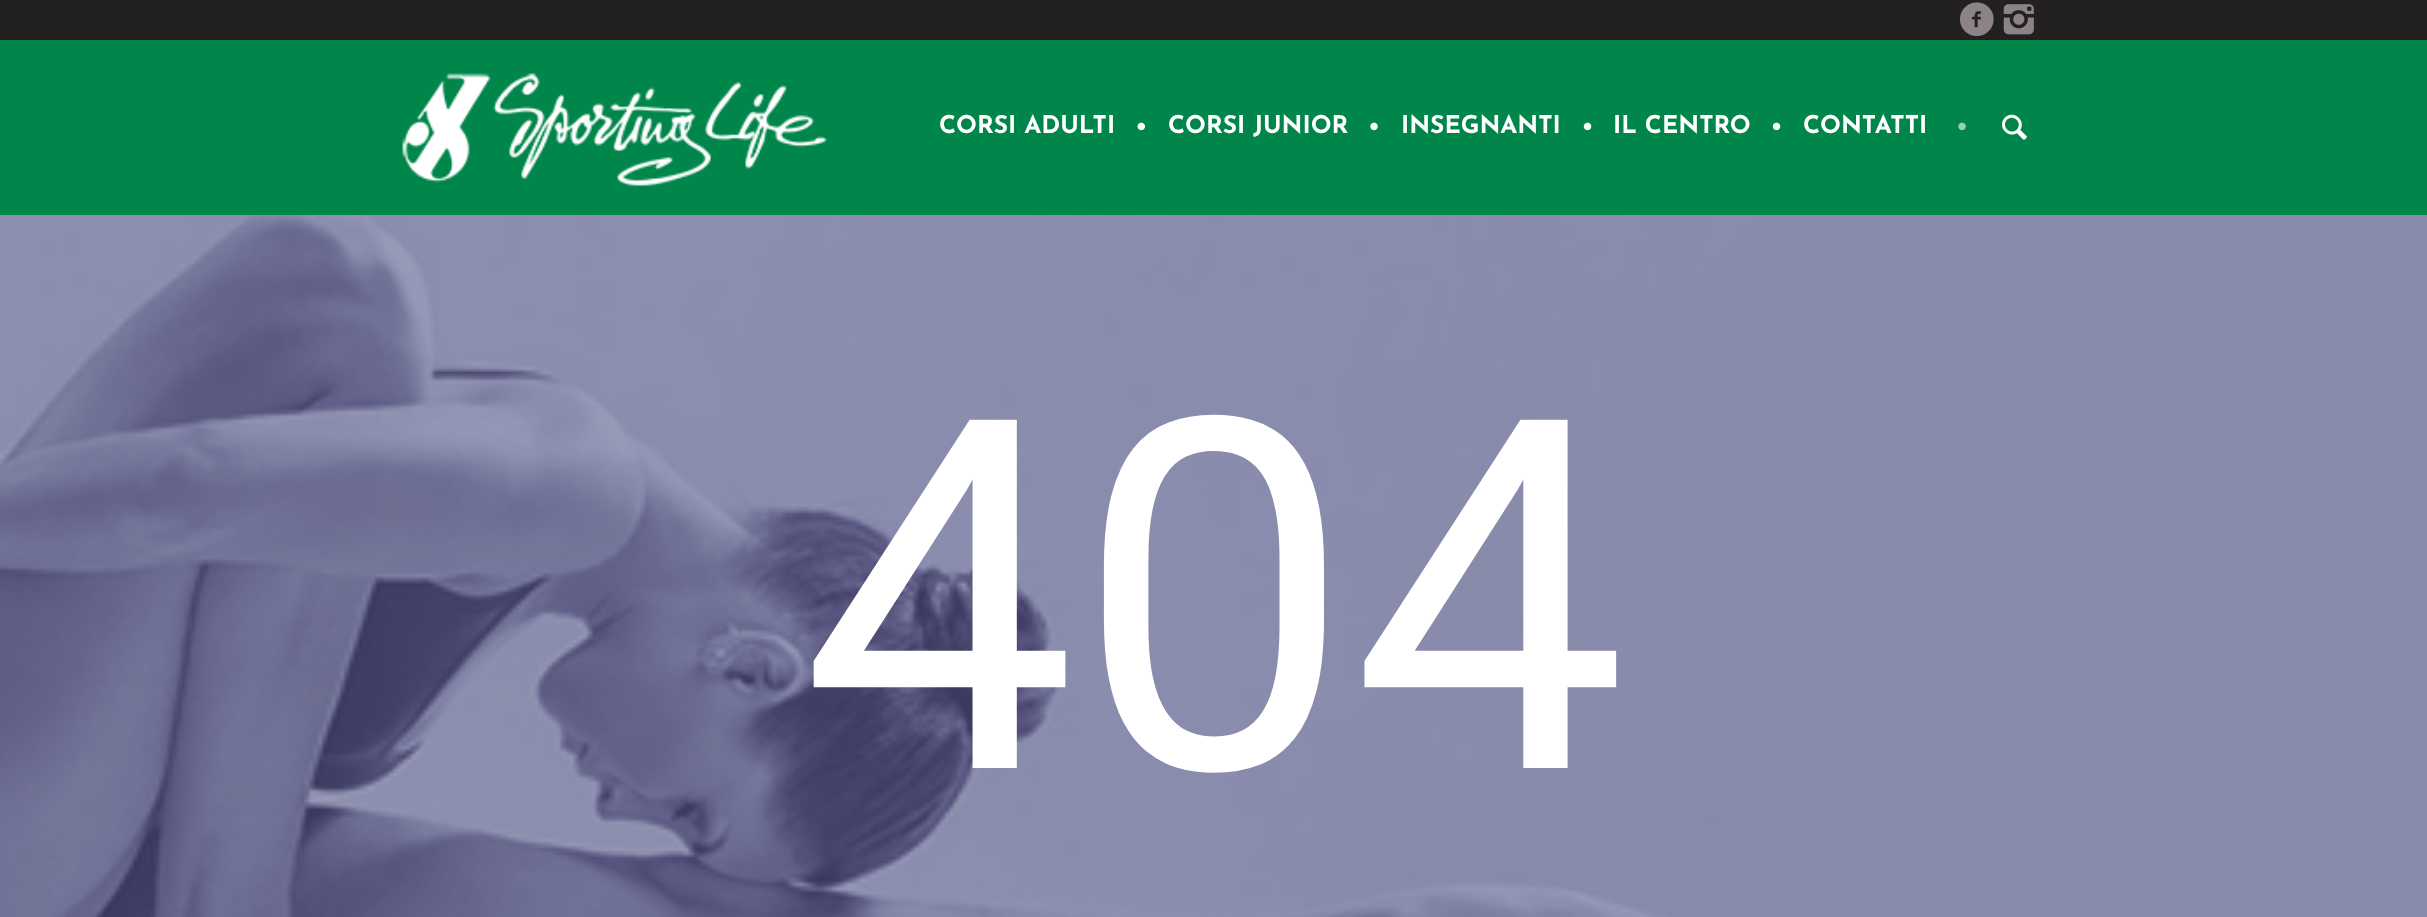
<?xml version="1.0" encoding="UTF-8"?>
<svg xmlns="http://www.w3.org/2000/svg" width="2427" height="917">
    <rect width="100%" height="100%" fill="#FFFFFF"/>
    <rect x="0" y="0" width="2427" height="40" fill="#232022"/>
    <image x="1960" y="2" width="34" height="35" href="img_01.png"/>
    <image x="2003" y="4" width="31" height="31" href="img_02.png"/>
    <rect x="0" y="40" width="2427" height="175" fill="#00854A"/>
    <image x="402" y="73" width="425" height="113" href="img_03.png"/>
    <text x="939" y="133" font-family="Josefin Sans" font-size="24.5" font-weight="700" fill="#FFFFFF">CORSI ADULTI</text>
    <image x="1137" y="122" width="8" height="9" href="img_04.png"/>
    <text x="1168" y="133" font-family="Josefin Sans" font-size="24.5" font-weight="700" fill="#FFFFFF">CORSI JUNIOR</text>
    <image x="1370" y="122" width="8" height="9" href="img_05.png"/>
    <text x="1401" y="133" font-family="Josefin Sans" font-size="24.5" font-weight="700" fill="#FFFFFF">INSEGNANTI</text>
    <image x="1583" y="122" width="9" height="9" href="img_06.png"/>
    <text x="1613" y="133" font-family="Josefin Sans" font-size="24.5" font-weight="700" fill="#FFFFFF">IL CENTRO</text>
    <image x="1772" y="122" width="9" height="9" href="img_06.png"/>
    <text x="1803" y="133" font-family="Josefin Sans" font-size="24.5" font-weight="700" fill="#FFFFFF">CONTATTI</text>
    <image x="1958" y="122" width="8" height="9" href="img_07.png"/>
    <image x="2002" y="114" width="25" height="26" href="img_08.png"/>
    <image x="0" y="215" width="2427" height="702" href="img_09.png"/>
    <text x="801" y="768" font-family="Roboto" font-size="490" fill="#FFFFFF">404</text>
</svg>
